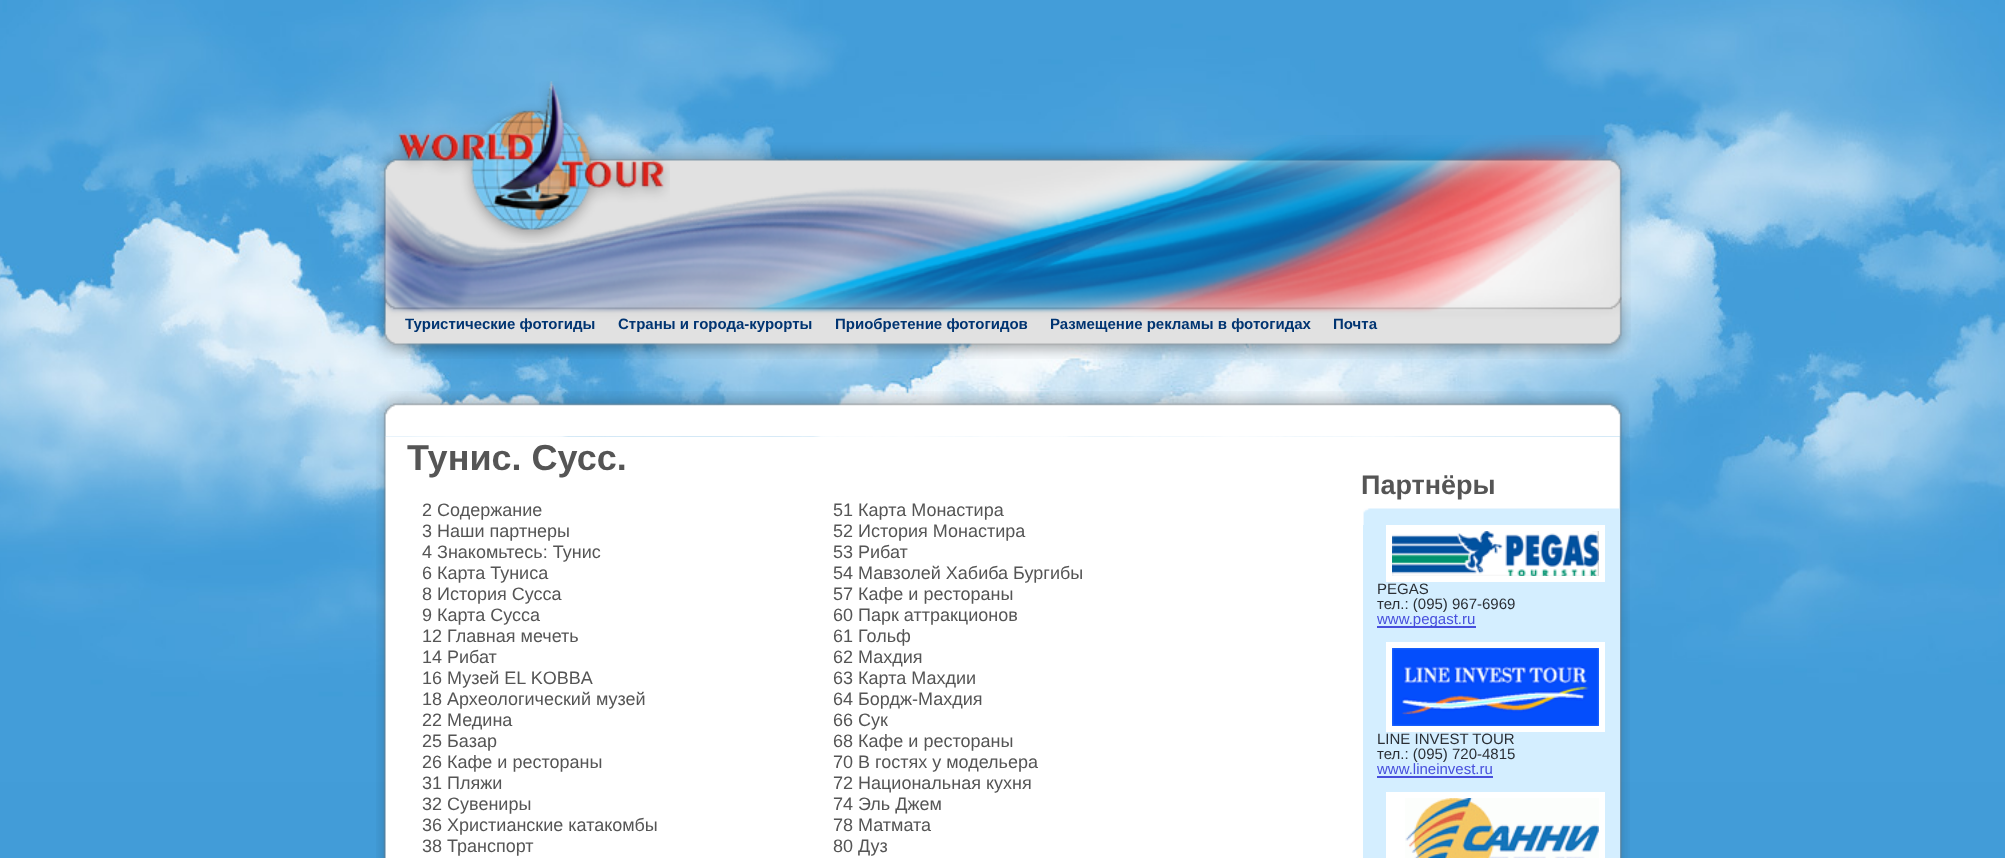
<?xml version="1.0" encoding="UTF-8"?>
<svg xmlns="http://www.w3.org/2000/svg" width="2005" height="858">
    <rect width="100%" height="100%" fill="#429CD8"/>
    <image x="0" y="0" width="2005" height="782" href="img_01.png"/>
    <image x="373" y="135" width="1258" height="224" href="img_02.png"/>
    <image x="393" y="81" width="277" height="162" href="img_03.png"/>
    <text x="405" y="329" font-family="Liberation Sans" font-size="15" font-weight="700" fill="#003471">Туристические фотогиды</text>
    <text x="618" y="329" font-family="Liberation Sans" font-size="15" font-weight="700" fill="#003471">Страны и города-курорты</text>
    <text x="835" y="329" font-family="Liberation Sans" font-size="15" font-weight="700" fill="#003471">Приобретение фотогидов</text>
    <text x="1050" y="329" font-family="Liberation Sans" font-size="15" font-weight="700" fill="#003471">Размещение рекламы в фотогидах</text>
    <text x="1333" y="329" font-family="Liberation Sans" font-size="15" font-weight="700" fill="#003471">Почта</text>
    <image x="376" y="391" width="1253" height="46" href="img_04.png"/>
    <image x="376" y="436" width="1254" height="422" href="img_05.png"/>
    <text x="407" y="470" font-family="Liberation Sans" font-size="36" font-weight="700" fill="#555555">Тунис. Сусс.</text>
    <text font-family="Liberation Sans" font-size="18" fill="#555555">
        <tspan x="422" y="516">2 Содержание</tspan>
        <tspan x="422" y="537">3 Наши партнеры</tspan>
        <tspan x="422" y="558">4 Знакомьтесь: Тунис</tspan>
        <tspan x="422" y="579">6 Карта Туниса</tspan>
        <tspan x="422" y="600">8 История Сусса</tspan>
        <tspan x="422" y="621">9 Карта Сусса</tspan>
        <tspan x="422" y="642">12 Главная мечеть</tspan>
        <tspan x="422" y="663">14 Рибат</tspan>
        <tspan x="422" y="684">16 Музей EL KOBBA</tspan>
        <tspan x="422" y="705">18 Археологический музей</tspan>
        <tspan x="422" y="726">22 Медина</tspan>
        <tspan x="422" y="747">25 Базар</tspan>
        <tspan x="422" y="768">26 Кафе и рестораны</tspan>
        <tspan x="422" y="789">31 Пляжи</tspan>
        <tspan x="422" y="810">32 Сувениры</tspan>
        <tspan x="422" y="831">36 Христианские катакомбы</tspan>
        <tspan x="422" y="852">38 Транспорт</tspan>
    </text>
    <text font-family="Liberation Sans" font-size="18" fill="#555555">
        <tspan x="833" y="516">51 Карта Монастира</tspan>
        <tspan x="833" y="537">52 История Монастира</tspan>
        <tspan x="833" y="558">53 Рибат</tspan>
        <tspan x="833" y="579">54 Мавзолей Хабиба Бургибы</tspan>
        <tspan x="833" y="600">57 Кафе и рестораны</tspan>
        <tspan x="833" y="621">60 Парк аттракционов</tspan>
        <tspan x="833" y="642">61 Гольф</tspan>
        <tspan x="833" y="663">62 Махдия</tspan>
        <tspan x="833" y="684">63 Карта Махдии</tspan>
        <tspan x="833" y="705">64 Бордж-Махдия</tspan>
        <tspan x="833" y="726">66 Сук</tspan>
        <tspan x="833" y="747">68 Кафе и рестораны</tspan>
        <tspan x="833" y="768">70 В гостях у модельера</tspan>
        <tspan x="833" y="789">72 Национальная кухня</tspan>
        <tspan x="833" y="810">74 Эль Джем</tspan>
        <tspan x="833" y="831">78 Матмата</tspan>
        <tspan x="833" y="852">80 Дуз</tspan>
    </text>
    <text x="1361" y="494" font-family="Liberation Sans" font-size="27" font-weight="700" fill="#555555">Партнёры</text>
    <image x="1363" y="508" width="257" height="17" href="img_06.png"/>
    <rect x="1363" y="525" width="257" height="333" fill="#D4EEFF"/>
    <rect x="1386" y="525" width="219" height="57" fill="#FFFFFF"/>
    <image x="1392" y="531" width="207" height="45" href="img_07.png"/>
    <text font-family="Liberation Sans" font-size="15" fill="#2B2F35">
        <tspan x="1377" y="594">PEGAS</tspan>
        <tspan x="1377" y="609">тел.: (095) 967-6969</tspan>
    </text>
    <rect x="1377" y="626" width="99" height="2" fill="#474FDD"/>
    <text x="1377" y="624" font-family="Liberation Sans" font-size="15" fill="#474FDD">www.pegast.ru</text>
    <rect x="1386" y="642" width="219" height="90" fill="#FFFFFF"/>
    <image x="1392" y="648" width="207" height="78" href="img_08.png"/>
    <text font-family="Liberation Sans" font-size="15" fill="#2B2F35">
        <tspan x="1377" y="744">LINE INVEST TOUR</tspan>
        <tspan x="1377" y="759">тел.: (095) 720-4815</tspan>
    </text>
    <text x="1377" y="774" font-family="Liberation Sans" font-size="15" fill="#474FDD">www.lineinvest.ru</text>
    <rect x="1377" y="776" width="116" height="2" fill="#474FDD"/>
    <rect x="1386" y="792" width="219" height="66" fill="#FFFFFF"/>
    <image x="1405" y="798" width="194" height="60" href="img_09.png"/>
</svg>
